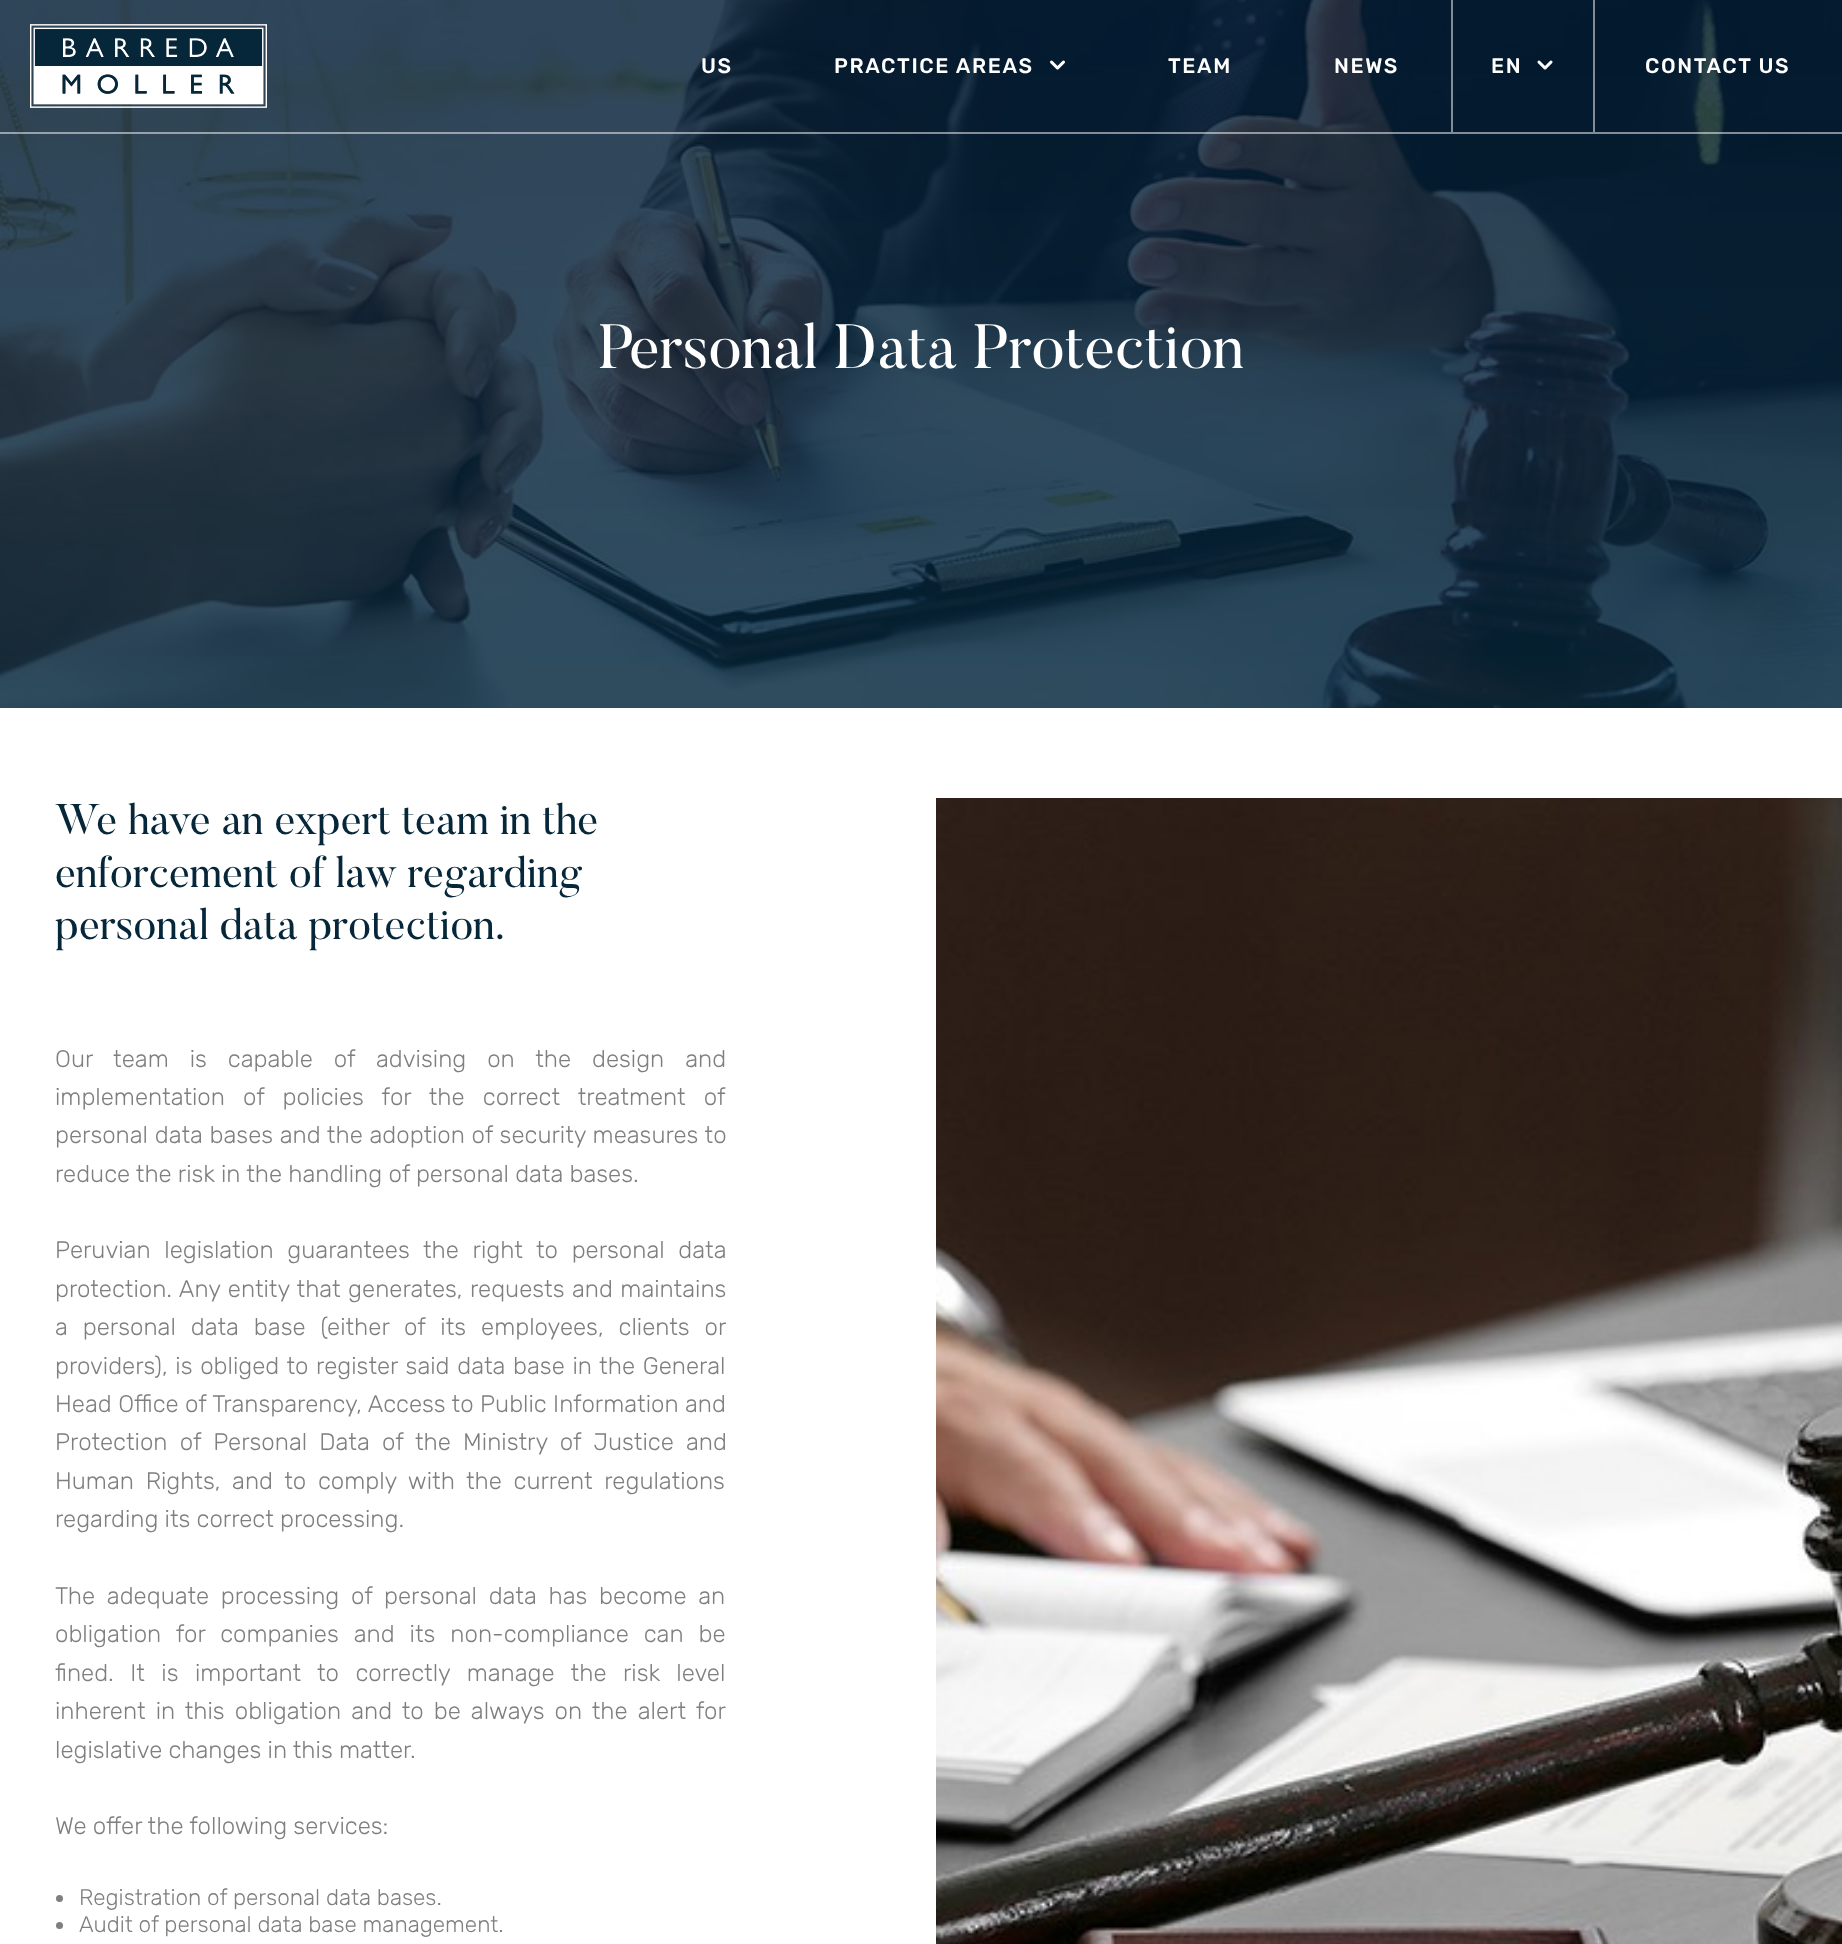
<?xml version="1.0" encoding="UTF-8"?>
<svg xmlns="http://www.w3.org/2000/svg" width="1842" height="1944">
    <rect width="100%" height="100%" fill="#FFFFFF"/>
    <image x="0" y="0" width="1842" height="708" href="img_04.png"/>
    <rect x="0" y="132" width="1842" height="2" fill="#FFFFFF" fill-opacity="0.5"/>
    <image x="30" y="24" width="237" height="84" href="img_01.png"/>
    <text x="701" y="73" font-family="Rubik" font-size="21" font-weight="500" letter-spacing="1.6" fill="#FFFFFF">US</text>
    <text x="834" y="73" font-family="Rubik" font-size="21" font-weight="500" letter-spacing="1.6" fill="#FFFFFF">PRACTICE AREAS</text>
    <image x="1050" y="60" width="15" height="10" href="img_02.png"/>
    <text x="1168" y="73" font-family="Rubik" font-size="21" font-weight="500" letter-spacing="1.6" fill="#FFFFFF">TEAM</text>
    <text x="1334" y="73" font-family="Rubik" font-size="21" font-weight="500" letter-spacing="1.6" fill="#FFFFFF">NEWS</text>
    <rect x="1593" y="0" width="2" height="132" fill="#818C97"/>
    <rect x="1451" y="0" width="2" height="132" fill="#828D97"/>
    <text x="1491" y="73" font-family="Rubik" font-size="21" font-weight="500" letter-spacing="1.6" fill="#FFFFFF">EN</text>
    <image x="1537" y="60" width="16" height="10" href="img_03.png"/>
    <text x="1645" y="73" font-family="Rubik" font-size="21" font-weight="500" letter-spacing="1.6" fill="#FFFFFF">CONTACT US</text>
    <text x="598" y="368" font-family="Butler" font-size="62" fill="#FFFFFF">Personal Data Protection</text>
    <text font-family="Butler" font-size="42.75" fill="#06273A">
        <tspan x="55" y="834">We have an expert team in the</tspan>
        <tspan x="55" y="887">enforcement of law regarding</tspan>
        <tspan x="55" y="939">personal data protection.</tspan>
    </text>
    <text font-family="Rubik" font-size="24" font-weight="300" fill="#7F7F7F">
        <tspan x="55" y="1067" word-spacing="14.75">Our team is capable of advising on the design and</tspan>
        <tspan x="55" y="1105" word-spacing="12">implementation of policies for the correct treatment of</tspan>
        <tspan x="55" y="1143" word-spacing="0.5">personal data bases and the adoption of security measures to</tspan>
        <tspan x="55" y="1182">reduce the risk in the handling of personal data bases.</tspan>
    </text>
    <text font-family="Rubik" font-size="24" font-weight="300" fill="#7F7F7F">
        <tspan x="55" y="1258" word-spacing="7.5">Peruvian legislation guarantees the right to personal data</tspan>
        <tspan x="55" y="1297" word-spacing="1.25">protection. Any entity that generates, requests and maintains</tspan>
        <tspan x="55" y="1335" word-spacing="8.75">a personal data base (either of its employees, clients or</tspan>
        <tspan x="55" y="1374" word-spacing="1.5">providers), is obliged to register said data base in the General</tspan>
        <tspan x="55" y="1412" word-spacing="0.25">Head Office of Transparency, Access to Public Information and</tspan>
        <tspan x="55" y="1450" word-spacing="6">Protection of Personal Data of the Ministry of Justice and</tspan>
        <tspan x="55" y="1489" word-spacing="5.5">Human Rights, and to comply with the current regulations</tspan>
        <tspan x="55" y="1527">regarding its correct processing.</tspan>
    </text>
    <text font-family="Rubik" font-size="24" font-weight="300" fill="#7F7F7F">
        <tspan x="55" y="1604" word-spacing="5.5">The adequate processing of personal data has become an</tspan>
        <tspan x="55" y="1642" word-spacing="8.75">obligation for companies and its non-compliance can be</tspan>
        <tspan x="55" y="1681" word-spacing="10.25">fined. It is important to correctly manage the risk level</tspan>
        <tspan x="55" y="1719" word-spacing="3.9">inherent in this obligation and to be always on the alert for</tspan>
        <tspan x="55" y="1758">legislative changes in this matter.</tspan>
    </text>
    <text x="55" y="1834" font-family="Rubik" font-size="24" font-weight="300" fill="#7F7F7F">We offer the following services:</text>
    <circle cx="59.5" cy="1898.5" r="3.5" fill="#7F7F7F"/>
    <text x="79" y="1905" font-family="Rubik" font-size="22.5" font-weight="300" fill="#7F7F7F">Registration of personal data bases.</text>
    <circle cx="59.5" cy="1925.5" r="3.5" fill="#7F7F7F"/>
    <text x="79" y="1932" font-family="Rubik" font-size="22.5" font-weight="300" fill="#7F7F7F">Audit of personal data base management.</text>
    <image x="936" y="798" width="906" height="1146" href="img_05.png"/>
</svg>
